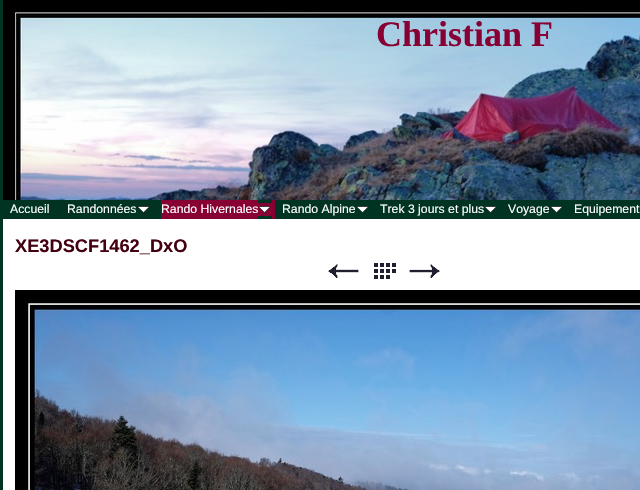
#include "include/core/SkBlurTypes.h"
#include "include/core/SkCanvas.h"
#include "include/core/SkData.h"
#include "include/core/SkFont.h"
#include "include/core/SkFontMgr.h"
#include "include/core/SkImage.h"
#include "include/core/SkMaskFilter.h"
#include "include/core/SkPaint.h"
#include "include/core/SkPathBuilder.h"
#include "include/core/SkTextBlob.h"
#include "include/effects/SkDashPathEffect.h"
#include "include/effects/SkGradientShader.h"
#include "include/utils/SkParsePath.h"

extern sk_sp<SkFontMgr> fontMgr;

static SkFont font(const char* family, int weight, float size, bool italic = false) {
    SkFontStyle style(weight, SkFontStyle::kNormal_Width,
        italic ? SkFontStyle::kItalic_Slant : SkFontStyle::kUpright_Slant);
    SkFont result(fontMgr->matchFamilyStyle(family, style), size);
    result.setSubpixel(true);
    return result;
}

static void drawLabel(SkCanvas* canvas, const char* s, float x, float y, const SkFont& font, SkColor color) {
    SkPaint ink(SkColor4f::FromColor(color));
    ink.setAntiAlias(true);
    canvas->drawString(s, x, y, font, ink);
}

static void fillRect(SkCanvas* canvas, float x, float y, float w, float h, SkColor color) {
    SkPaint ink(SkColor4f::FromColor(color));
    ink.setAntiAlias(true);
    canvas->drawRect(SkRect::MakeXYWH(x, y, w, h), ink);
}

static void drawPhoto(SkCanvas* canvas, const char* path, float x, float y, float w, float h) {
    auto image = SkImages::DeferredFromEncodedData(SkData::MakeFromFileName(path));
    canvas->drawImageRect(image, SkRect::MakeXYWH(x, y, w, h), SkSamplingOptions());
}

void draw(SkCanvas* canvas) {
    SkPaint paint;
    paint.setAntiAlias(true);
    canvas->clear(0xFFFFFFFF);
    fillRect(canvas, 0, 0, 3, 490, 0xFF003322);
    drawPhoto(canvas, "assets/img1.png", 3, 0, 637, 200);
    SkFont font1 = font("Liberation Serif", 700, 36);
    drawLabel(canvas, "Christian F", 376, 46, font1, 0xFF880033);
    fillRect(canvas, 3, 200, 637, 19, 0xFF003322);
    SkFont font2 = font("Liberation Sans", 400, 12.25f);
    drawLabel(canvas, "Accueil", 10, 213, font2, 0xFFFFFFFF);
    drawLabel(canvas, "Randonnées", 67, 213, font2, 0xFFFFFFFF);
    drawPhoto(canvas, "assets/img2.png", 138, 206, 11, 7);
    fillRect(canvas, 161, 200, 97, 19, 0xFF880033);
    fillRect(canvas, 258, 203, 14, 13, 0xFF880033);
    fillRect(canvas, 272, 200, 3, 19, 0xFF880033);
    drawLabel(canvas, "Rando Hivernales", 161, 213, font2, 0xFFFFFFFF);
    drawPhoto(canvas, "assets/img3.png", 259, 206, 11, 7);
    drawLabel(canvas, "Rando Alpine", 282, 213, font2, 0xFFFFFFFF);
    drawPhoto(canvas, "assets/img2.png", 357, 206, 11, 7);
    drawLabel(canvas, "Trek 3 jours et plus", 380, 213, font2, 0xFFFFFFFF);
    drawPhoto(canvas, "assets/img2.png", 485, 206, 11, 7);
    drawLabel(canvas, "Voyage", 508, 213, font2, 0xFFFFFFFF);
    drawPhoto(canvas, "assets/img2.png", 551, 206, 11, 7);
    drawLabel(canvas, "Equipement", 574, 213, font2, 0xFFFFFFFF);
    SkFont font3 = font("Liberation Sans", 700, 18.25f);
    drawLabel(canvas, "XE3DSCF1462_DxO", 15, 252, font3, 0xFF440011);
    drawPhoto(canvas, "assets/img4.png", 328, 264, 31, 14);
    drawPhoto(canvas, "assets/img5.png", 374, 263, 22, 16);
    drawPhoto(canvas, "assets/img6.png", 409, 264, 31, 14);
    drawPhoto(canvas, "assets/img7.png", 15, 290, 625, 200);
}
